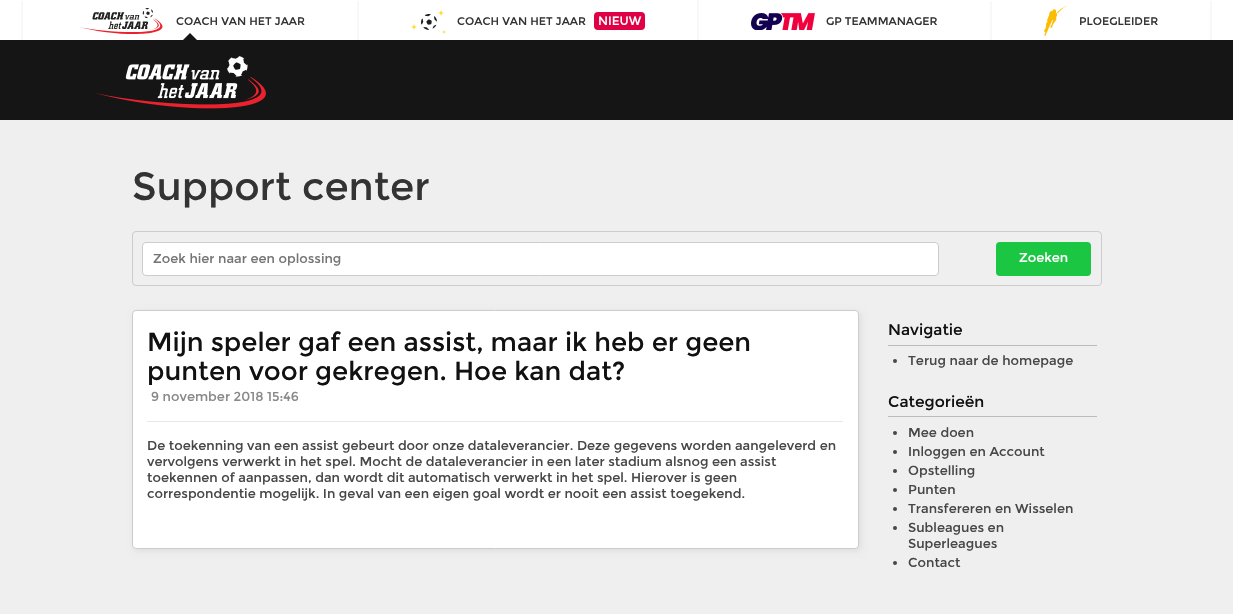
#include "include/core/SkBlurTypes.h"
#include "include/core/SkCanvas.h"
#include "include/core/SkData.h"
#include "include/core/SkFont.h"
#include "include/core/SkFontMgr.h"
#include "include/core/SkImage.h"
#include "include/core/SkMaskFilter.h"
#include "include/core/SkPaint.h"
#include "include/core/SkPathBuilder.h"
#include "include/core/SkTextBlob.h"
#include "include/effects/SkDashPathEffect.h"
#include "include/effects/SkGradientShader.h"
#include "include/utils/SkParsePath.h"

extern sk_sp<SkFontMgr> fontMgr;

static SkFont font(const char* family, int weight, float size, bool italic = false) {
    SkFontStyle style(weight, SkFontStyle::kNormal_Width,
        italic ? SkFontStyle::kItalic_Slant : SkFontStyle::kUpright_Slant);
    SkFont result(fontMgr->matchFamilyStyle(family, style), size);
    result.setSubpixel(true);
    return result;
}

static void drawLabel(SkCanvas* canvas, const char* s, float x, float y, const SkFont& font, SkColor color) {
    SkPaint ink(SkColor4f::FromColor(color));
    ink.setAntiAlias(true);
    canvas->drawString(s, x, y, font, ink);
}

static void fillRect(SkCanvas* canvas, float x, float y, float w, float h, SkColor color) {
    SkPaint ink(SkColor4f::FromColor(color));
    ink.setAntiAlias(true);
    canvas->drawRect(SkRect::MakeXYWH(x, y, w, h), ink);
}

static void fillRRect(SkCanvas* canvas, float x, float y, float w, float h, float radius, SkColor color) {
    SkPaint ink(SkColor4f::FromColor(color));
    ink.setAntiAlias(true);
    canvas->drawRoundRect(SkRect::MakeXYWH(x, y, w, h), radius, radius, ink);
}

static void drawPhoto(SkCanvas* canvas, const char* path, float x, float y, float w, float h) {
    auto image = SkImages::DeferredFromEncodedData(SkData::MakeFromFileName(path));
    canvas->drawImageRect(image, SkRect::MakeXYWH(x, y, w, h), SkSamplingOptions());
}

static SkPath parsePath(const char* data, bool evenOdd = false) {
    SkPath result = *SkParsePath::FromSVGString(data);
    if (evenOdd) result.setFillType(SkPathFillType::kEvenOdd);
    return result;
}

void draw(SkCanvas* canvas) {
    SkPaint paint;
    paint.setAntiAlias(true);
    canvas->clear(0xFFEFEFEF);
    fillRect(canvas, 0, 0, 1233, 40, 0xFFFFFFFF);
    fillRect(canvas, 357, 1, 2, 40, 0xFFF8F8F8);
    fillRect(canvas, 21, 1, 2, 40, 0xFFF8F8F8);
    drawPhoto(canvas, "assets/img1.png", 78, 8, 85, 26);
    SkFont font1 = font("Montserrat", 400, 11);
    drawLabel(canvas, "COACH VAN HET JAAR", 176, 25, font1, 0xFF333333);
    paint.setColor(0xFF151515);
    canvas->drawPath(parsePath("M182 41L190 33L198 41Z"), paint);
    fillRect(canvas, 697, 0, 2, 40, 0xFFF8F8F8);
    drawPhoto(canvas, "assets/img2.png", 411, 10, 35, 24);
    drawLabel(canvas, "COACH VAN HET JAAR", 457, 25, font1, 0xFF333333);
    fillRRect(canvas, 594, 12, 51, 18, 4, 0xFFDF0045);
    SkFont font2 = font("Montserrat", 400, 12);
    drawLabel(canvas, "NIEUW", 598, 25, font2, 0xFFFFFFFF);
    fillRect(canvas, 990, 1, 2, 40, 0xFFF8F8F8);
    drawPhoto(canvas, "assets/img3.png", 751, 13, 64, 17);
    drawLabel(canvas, "GP TEAMMANAGER", 826, 25, font1, 0xFF333333);
    fillRect(canvas, 1210, 1, 2, 40, 0xFFF8F8F8);
    drawPhoto(canvas, "assets/img4.png", 1044, 6, 24, 30);
    drawLabel(canvas, "PLOEGLEIDER", 1079, 25, font1, 0xFF333333);
    fillRect(canvas, 0, 40, 1233, 80, 0xFF151515);
    drawPhoto(canvas, "assets/img5.png", 95, 56, 171, 53);
    SkFont font3 = font("Montserrat", 400, 39);
    drawLabel(canvas, "Support center", 132, 200, font3, 0xFF333333);
    paint.setStroke(true);
    paint.setStrokeWidth(1);
    paint.setColor(0xFFCCCCCC);
    canvas->drawRoundRect(SkRect::MakeXYWH(132.5f, 231.5f, 969, 54), 3.5f, 3.5f, paint);
    paint.setStroke(false);
    paint.setColor(0xFFFFFFFF);
    canvas->drawRoundRect(SkRect::MakeXYWH(142.5f, 242.5f, 796, 33), 3.5f, 3.5f, paint);
    paint.setStroke(true);
    paint.setColor(0xFFCCCCCC);
    canvas->drawRoundRect(SkRect::MakeXYWH(142.5f, 242.5f, 796, 33), 3.5f, 3.5f, paint);
    SkFont font4 = font("Montserrat", 400, 13);
    drawLabel(canvas, "Zoek hier naar een oplossing", 153, 263, font4, 0xFF757575);
    fillRRect(canvas, 996, 242, 95, 34, 4, 0xFF1AC642);
    drawLabel(canvas, "Zoeken", 1019, 262, font4, 0xFFFFFFFF);
    paint.setStroke(false);
    paint.setColor(0xFFDDDDDD);
    paint.setMaskFilter(SkMaskFilter::MakeBlur(kNormal_SkBlurStyle, 3));
    canvas->drawRoundRect(SkRect::MakeXYWH(134, 312, 727, 239), 4, 4, paint);
    paint.setMaskFilter(nullptr);
    paint.setColor(0xFFFFFFFF);
    canvas->drawRoundRect(SkRect::MakeXYWH(132.5f, 310.5f, 726, 238), 3.5f, 3.5f, paint);
    paint.setStroke(true);
    paint.setColor(0xFFCCCCCC);
    canvas->drawRoundRect(SkRect::MakeXYWH(132.5f, 310.5f, 726, 238), 3.5f, 3.5f, paint);
    SkFont font5 = font("Montserrat", 400, 26);
    drawLabel(canvas, "Mijn speler gaf een assist, maar ik heb er geen", 147, 351, font5, 0xFF111111);
    drawLabel(canvas, "punten voor gekregen. Hoe kan dat?", 147, 380, font5, 0xFF111111);
    drawLabel(canvas, "9 november 2018 15:46", 151, 401, font4, 0xFF888888);
    fillRect(canvas, 147, 421, 696, 1, 0xFFE7E7E7);
    drawLabel(canvas, "De toekenning van een assist gebeurt door onze dataleverancier. Deze gegevens worden aangeleverd en", 147, 450, font4, 0xFF474747);
    drawLabel(canvas, "vervolgens verwerkt in het spel. Mocht de dataleverancier in een later stadium alsnog een assist", 147, 466, font4, 0xFF474747);
    drawLabel(canvas, "toekennen of aanpassen, dan wordt dit automatisch verwerkt in het spel. Hierover is geen", 147, 482, font4, 0xFF474747);
    drawLabel(canvas, "correspondentie mogelijk. In geval van een eigen goal wordt er nooit een assist toegekend.", 147, 498, font4, 0xFF474747);
    SkFont font6 = font("Montserrat", 400, 15.5f);
    drawLabel(canvas, "Navigatie", 888, 335, font6, 0xFF111111);
    fillRect(canvas, 888, 345, 209, 1, 0xFFBBBBBB);
    paint.setStroke(false);
    paint.setColor(0xFF474747);
    canvas->drawCircle(895, 361, 2, paint);
    drawLabel(canvas, "Terug naar de homepage", 908, 365, font4, 0xFF474747);
    drawLabel(canvas, "Categorieën", 888, 407, font6, 0xFF111111);
    fillRect(canvas, 888, 416, 209, 1, 0xFFBBBBBB);
    canvas->drawCircle(895, 433, 2, paint);
    drawLabel(canvas, "Mee doen", 908, 437, font4, 0xFF474747);
    canvas->drawCircle(895, 452, 2, paint);
    drawLabel(canvas, "Inloggen en Account", 908, 456, font4, 0xFF474747);
    canvas->drawCircle(895, 471, 2, paint);
    drawLabel(canvas, "Opstelling", 908, 475, font4, 0xFF474747);
    canvas->drawCircle(895, 490, 2, paint);
    drawLabel(canvas, "Punten", 908, 494, font4, 0xFF474747);
    canvas->drawCircle(895, 509, 2, paint);
    drawLabel(canvas, "Transfereren en Wisselen", 908, 513, font4, 0xFF474747);
    canvas->drawCircle(895, 528, 2, paint);
    drawLabel(canvas, "Subleagues en", 908, 532, font4, 0xFF474747);
    drawLabel(canvas, "Superleagues", 908, 548, font4, 0xFF474747);
    canvas->drawCircle(895, 563, 2, paint);
    drawLabel(canvas, "Contact", 908, 567, font4, 0xFF474747);
}
